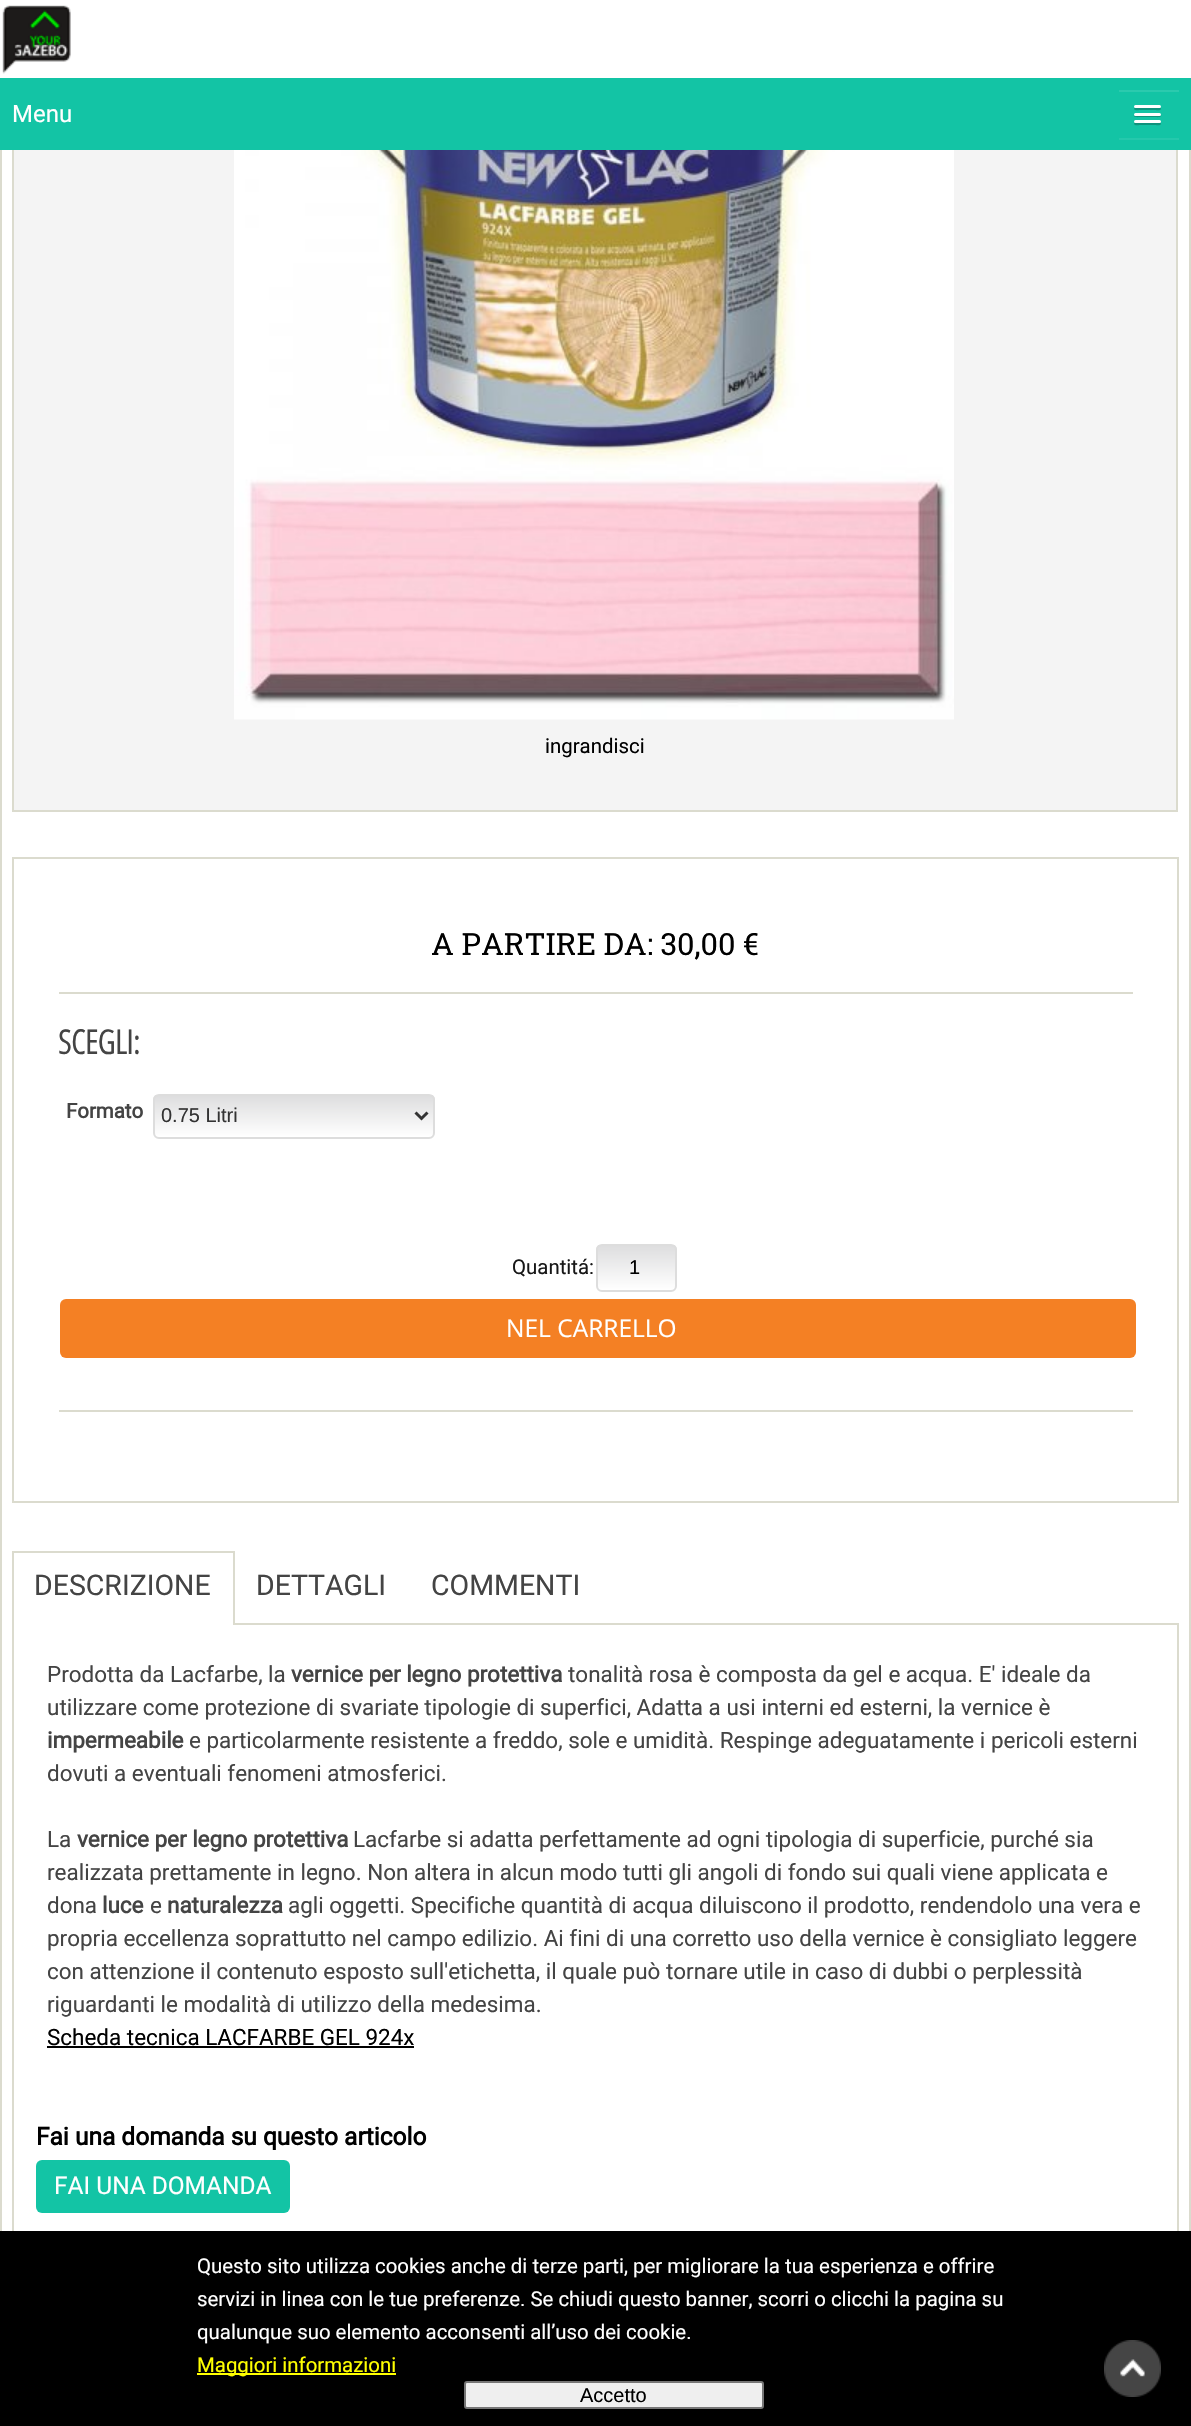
#include "include/core/SkBlurTypes.h"
#include "include/core/SkCanvas.h"
#include "include/core/SkData.h"
#include "include/core/SkFont.h"
#include "include/core/SkFontMgr.h"
#include "include/core/SkImage.h"
#include "include/core/SkMaskFilter.h"
#include "include/core/SkPaint.h"
#include "include/core/SkPathBuilder.h"
#include "include/core/SkTextBlob.h"
#include "include/effects/SkDashPathEffect.h"
#include "include/effects/SkGradientShader.h"
#include "include/utils/SkParsePath.h"

extern sk_sp<SkFontMgr> fontMgr;

static SkFont font(const char* family, int weight, float size, bool italic = false) {
    SkFontStyle style(weight, SkFontStyle::kNormal_Width,
        italic ? SkFontStyle::kItalic_Slant : SkFontStyle::kUpright_Slant);
    SkFont result(fontMgr->matchFamilyStyle(family, style), size);
    result.setSubpixel(true);
    return result;
}

static void drawLabel(SkCanvas* canvas, const char* s, float x, float y, const SkFont& font, SkColor color) {
    SkPaint ink(SkColor4f::FromColor(color));
    ink.setAntiAlias(true);
    canvas->drawString(s, x, y, font, ink);
}

static void fillRect(SkCanvas* canvas, float x, float y, float w, float h, SkColor color) {
    SkPaint ink(SkColor4f::FromColor(color));
    ink.setAntiAlias(true);
    canvas->drawRect(SkRect::MakeXYWH(x, y, w, h), ink);
}

static void fillRRect(SkCanvas* canvas, float x, float y, float w, float h, float radius, SkColor color) {
    SkPaint ink(SkColor4f::FromColor(color));
    ink.setAntiAlias(true);
    canvas->drawRoundRect(SkRect::MakeXYWH(x, y, w, h), radius, radius, ink);
}

static void drawPhoto(SkCanvas* canvas, const char* path, float x, float y, float w, float h) {
    auto image = SkImages::DeferredFromEncodedData(SkData::MakeFromFileName(path));
    canvas->drawImageRect(image, SkRect::MakeXYWH(x, y, w, h), SkSamplingOptions());
}

static SkPath parsePath(const char* data, bool evenOdd = false) {
    SkPath result = *SkParsePath::FromSVGString(data);
    if (evenOdd) result.setFillType(SkPathFillType::kEvenOdd);
    return result;
}

void draw(SkCanvas* canvas) {
    SkPaint paint;
    paint.setAntiAlias(true);
    canvas->clear(0xFFFFFFFF);
    paint.setStroke(true);
    paint.setStrokeWidth(2);
    paint.setColor(0xFFDBDBCE);
    canvas->drawRect(SkRect::MakeXYWH(1, -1, 1189, 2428), paint);
    fillRect(canvas, 14, 150, 1162, 660, 0xFFF4F4F4);
    canvas->drawRect(SkRect::MakeXYWH(13, -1, 1164, 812), paint);
    fillRect(canvas, 0, 0, 1191, 78, 0xFFFFFFFF);
    drawPhoto(canvas, "assets/img1.png", 2, 5, 69, 69);
    fillRect(canvas, 0, 78, 1191, 72, 0xFF13C4A5);
    SkFont font1 = font("Roboto", 400, 24);
    drawLabel(canvas, "Menu", 12, 122, font1, 0xFFFFFFFF);
    fillRect(canvas, 1119, 138, 60, 2, 0xFF25C8AC);
    fillRect(canvas, 1119, 90, 60, 2, 0xFF2BCAAE);
    paint.setStroke(false);
    paint.setColor(0xFF0E937C);
    canvas->drawPath(parsePath("M1134.5 107.5L1134 109C1134.5 111 1139 110 1139.5 110H1155.5C1156 110 1160.5 111 1161 109L1160.5 107.5L1159.5 108H1135.5Z"), paint);
    fillRRect(canvas, 1134, 105, 27, 3, 1.5f, 0xFFFFFFFF);
    canvas->drawPath(parsePath("M1134 114.5C1132.5 118 1139.5 117 1139.5 117H1155.5C1155.5 117 1162.5 118 1161 114.5C1160.5 115 1160 115.5 1159.5 115.5H1135.5C1135 115.5 1134.5 115 1134 114.5Z"), paint);
    fillRRect(canvas, 1134, 113, 27, 3, 1.5f, 0xFFFFFFFF);
    canvas->drawPath(parsePath("M1134.5 122.5L1134 124C1134.5 126 1139 125 1139.5 125H1155.5C1156 125 1160.5 126 1161 124L1160.5 122.5L1159.5 123H1135.5Z"), paint);
    fillRRect(canvas, 1134, 120, 27, 3, 1.5f, 0xFFFFFFFF);
    drawPhoto(canvas, "assets/img2.png", 234, 150, 720, 570);
    SkFont font2 = font("Roboto", 400, 20.4f);
    drawLabel(canvas, "ingrandisci", 545, 753, font2, 0xFF000000);
    paint.setStroke(true);
    paint.setColor(0xFFDBDBCE);
    canvas->drawRect(SkRect::MakeXYWH(13, 858, 1165, 644), paint);
    fillRect(canvas, 59, 992, 1074, 2, 0xFFDBDBCE);
    SkFont font3 = font("Roboto Slab", 400, 30.6f);
    drawLabel(canvas, "A PARTIRE DA: 30,00 €", 431, 955, font3, 0xFF000000);
    SkFont font4 = font("Open Sans Condensed", 700, 33);
    drawLabel(canvas, "SCEGLI:", 58, 1054, font4, 0xFF444444);
    SkFont font5 = font("Roboto", 700, 20.4f);
    drawLabel(canvas, "Formato", 66, 1118, font5, 0xFF444444);
    canvas->save();
    canvas->clipPath(parsePath("M159 1094H429C432.5 1094 435 1096.5 435 1100V1133C435 1136.5 432.5 1139 429 1139H159C155.5 1139 153 1136.5 153 1133V1100C153 1096.5 155.5 1094 159 1094Z"), true);
    paint.setStroke(false);
    {
        const SkColor colors[] = {0xFFDDDDDE, 0xFFFFFFFF};
        const float stops[] = {0, 1};
        const SkPoint ends[] = {{294, 1095}, {294, 1137}};
        paint.setShader(SkGradientShader::MakeLinear(ends, colors, stops, 2, SkTileMode::kClamp));
        paint.setAlpha(255);
    }
    canvas->drawRect(SkRect::MakeXYWH(153, 1095, 282, 42), paint);
    canvas->restore();
    paint.setStroke(true);
    paint.setShader(nullptr);
    paint.setColor(0xFFDDDDDD);
    canvas->drawRoundRect(SkRect::MakeXYWH(154, 1095, 280, 43), 5, 5, paint);
    paint.setStrokeWidth(3);
    paint.setColor(0xFF333333);
    canvas->drawPath(parsePath("M415.5 1112.5L421.5 1118.5L427.5 1112.5"), paint);
    SkFont font6 = font("Liberation Sans", 400, 20);
    drawLabel(canvas, "0.75 Litri", 161, 1122, font6, 0xFF333333);
    fillRect(canvas, 59, 1410, 1074, 2, 0xFFDBDBCE);
    drawLabel(canvas, "Quantitá:", 512, 1274, font2, 0xFF171717);
    canvas->save();
    canvas->clipPath(parsePath("M602 1244H671C674.5 1244 677 1246.5 677 1250V1286C677 1289.5 674.5 1292 671 1292H602C598.5 1292 596 1289.5 596 1286V1250C596 1246.5 598.5 1244 602 1244Z"), true);
    paint.setStroke(false);
    {
        const SkColor colors[] = {0xFFDDDDDE, 0xFFFFFFFF};
        const float stops[] = {0, 1};
        const SkPoint ends[] = {{636, 1245}, {636, 1290}};
        paint.setShader(SkGradientShader::MakeLinear(ends, colors, stops, 2, SkTileMode::kClamp));
        paint.setAlpha(255);
    }
    canvas->drawRect(SkRect::MakeXYWH(596, 1245, 81, 45), paint);
    canvas->restore();
    paint.setStroke(true);
    paint.setStrokeWidth(2);
    paint.setShader(nullptr);
    paint.setColor(0xFFDDDDDD);
    canvas->drawRoundRect(SkRect::MakeXYWH(597, 1245, 79, 46), 5, 5, paint);
    drawLabel(canvas, "1", 629, 1274, font6, 0xFF000000);
    fillRRect(canvas, 60, 1299, 1076, 59, 6, 0xFFF48024);
    SkFont font7 = font("Open Sans", 400, 24.5f);
    drawLabel(canvas, "NEL CARRELLO", 506, 1337, font7, 0xFFFFFFFF);
    paint.setColor(0xFFDBDBCE);
    canvas->drawRect(SkRect::MakeXYWH(13, 1624, 1165, 676), paint);
    fillRect(canvas, 14, 1623, 219, 2, 0xFFFFFFFF);
    fillRect(canvas, 12, 1551, 222, 2, 0xFFDBDBCE);
    fillRect(canvas, 233, 1551, 2, 74, 0xFFDBDBCE);
    fillRect(canvas, 12, 1551, 2, 74, 0xFFDBDBCE);
    SkFont font8 = font("Roboto", 400, 28.5f);
    drawLabel(canvas, "DESCRIZIONE", 34, 1595, font8, 0xFF444444);
    drawLabel(canvas, "DETTAGLI", 256, 1595, font8, 0xFF444444);
    drawLabel(canvas, "COMMENTI", 431, 1595, font8, 0xFF444444);
    SkFont font9 = font("Roboto", 400, 22.45f);
    drawLabel(canvas, "Prodotta da Lacfarbe, la", 47, 1682, font9, 0xFF444444);
    SkFont font10 = font("Roboto", 700, 22.45f);
    drawLabel(canvas, "vernice per legno protettiva", 291, 1682, font10, 0xFF444444);
    drawLabel(canvas, "tonalità rosa è composta da gel e acqua. E' ideale da", 568, 1682, font9, 0xFF444444);
    drawLabel(canvas, "utilizzare come protezione di svariate tipologie di superfici, Adatta a usi interni ed esterni, la vernice è", 47, 1715, font9, 0xFF444444);
    drawLabel(canvas, "impermeabile", 47, 1748, font10, 0xFF444444);
    drawLabel(canvas, "e particolarmente resistente a freddo, sole e umidità. Respinge adeguatamente i pericoli esterni", 189, 1748, font9, 0xFF444444);
    drawLabel(canvas, "dovuti a eventuali fenomeni atmosferici.", 47, 1781, font9, 0xFF444444);
    drawLabel(canvas, "La", 47, 1847, font9, 0xFF444444);
    drawLabel(canvas, "vernice per legno protettiva", 77, 1847, font10, 0xFF444444);
    drawLabel(canvas, "Lacfarbe si adatta perfettamente ad ogni tipologia di superficie, purché sia", 353, 1847, font9, 0xFF444444);
    drawLabel(canvas, "realizzata prettamente in legno. Non altera in alcun modo tutti gli angoli di fondo sui quali viene applicata e", 47, 1880, font9, 0xFF444444);
    drawLabel(canvas, "dona", 47, 1913, font9, 0xFF444444);
    drawLabel(canvas, "luce", 102, 1913, font10, 0xFF444444);
    drawLabel(canvas, "e", 150, 1913, font9, 0xFF444444);
    drawLabel(canvas, "naturalezza", 167, 1913, font10, 0xFF444444);
    drawLabel(canvas, "agli oggetti. Specifiche quantità di acqua diluiscono il prodotto, rendendolo una vera e", 288, 1913, font9, 0xFF444444);
    drawLabel(canvas, "propria eccellenza soprattutto nel campo edilizio. Ai fini di una corretto uso della vernice è consigliato leggere", 47, 1946, font9, 0xFF444444);
    drawLabel(canvas, "con attenzione il contenuto esposto sull'etichetta, il quale può tornare utile in caso di dubbi o perplessità", 47, 1979, font9, 0xFF444444);
    drawLabel(canvas, "riguardanti le modalità di utilizzo della medesima.", 47, 2012, font9, 0xFF444444);
    drawLabel(canvas, "Scheda tecnica LACFARBE GEL 924x", 47, 2045, font9, 0xFF000000);
    fillRect(canvas, 47, 2046, 367, 2, 0xFF000000);
    SkFont font11 = font("Roboto", 700, 24.5f);
    drawLabel(canvas, "Fai una domanda su questo articolo", 36, 2145, font11, 0xFF000000);
    fillRRect(canvas, 36, 2160, 254, 53, 6, 0xFF13C4A5);
    SkFont font12 = font("Roboto", 400, 24.5f);
    drawLabel(canvas, "FAI UNA DOMANDA", 54, 2194, font12, 0xFFFFFFFF);
    fillRect(canvas, 0, 2231, 1191, 195, 0xFF000000);
    drawLabel(canvas, "Questo sito utilizza cookies anche di terze parti, per migliorare la tua esperienza e offrire", 197, 2273, font2, 0xFFFFFFFF);
    drawLabel(canvas, "servizi in linea con le tue preferenze. Se chiudi questo banner, scorri o clicchi la pagina su", 197, 2306, font2, 0xFFFFFFFF);
    drawLabel(canvas, "qualunque suo elemento acconsenti all’uso dei cookie.", 197, 2339, font2, 0xFFFFFFFF);
    fillRect(canvas, 197, 2373, 199, 2, 0xFFFFFF00);
    drawLabel(canvas, "Maggiori informazioni", 197, 2372, font2, 0xFFFFFF00);
    paint.setStroke(false);
    paint.setColor(0xFFEFEFEF);
    canvas->drawRoundRect(SkRect::MakeXYWH(465, 2382, 298, 26), 2, 2, paint);
    paint.setStroke(true);
    paint.setColor(0xFF767676);
    canvas->drawRoundRect(SkRect::MakeXYWH(465, 2382, 298, 26), 2, 2, paint);
    drawLabel(canvas, "Accetto", 580, 2402, font6, 0xFF000000);
    drawPhoto(canvas, "assets/img3.png", 1104, 2340, 57, 57);
}
